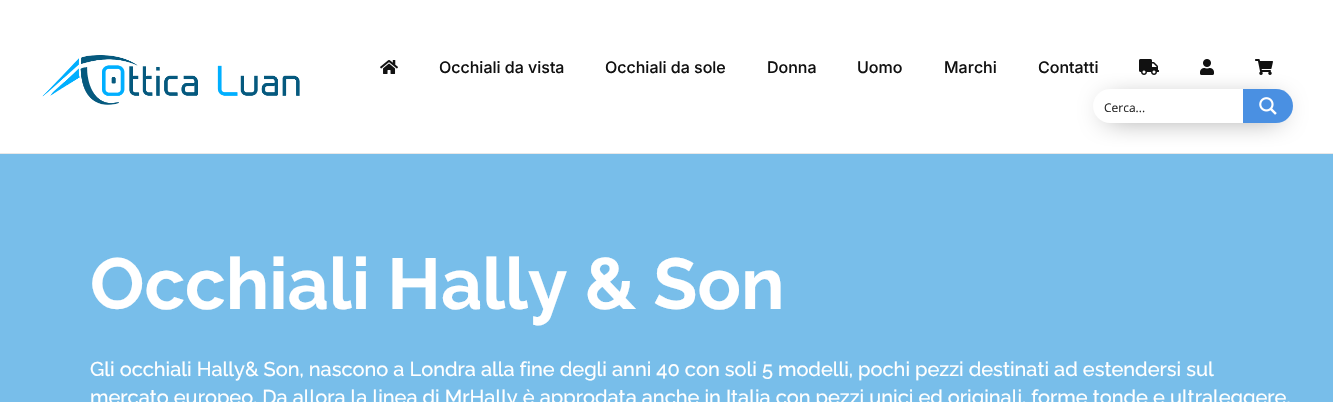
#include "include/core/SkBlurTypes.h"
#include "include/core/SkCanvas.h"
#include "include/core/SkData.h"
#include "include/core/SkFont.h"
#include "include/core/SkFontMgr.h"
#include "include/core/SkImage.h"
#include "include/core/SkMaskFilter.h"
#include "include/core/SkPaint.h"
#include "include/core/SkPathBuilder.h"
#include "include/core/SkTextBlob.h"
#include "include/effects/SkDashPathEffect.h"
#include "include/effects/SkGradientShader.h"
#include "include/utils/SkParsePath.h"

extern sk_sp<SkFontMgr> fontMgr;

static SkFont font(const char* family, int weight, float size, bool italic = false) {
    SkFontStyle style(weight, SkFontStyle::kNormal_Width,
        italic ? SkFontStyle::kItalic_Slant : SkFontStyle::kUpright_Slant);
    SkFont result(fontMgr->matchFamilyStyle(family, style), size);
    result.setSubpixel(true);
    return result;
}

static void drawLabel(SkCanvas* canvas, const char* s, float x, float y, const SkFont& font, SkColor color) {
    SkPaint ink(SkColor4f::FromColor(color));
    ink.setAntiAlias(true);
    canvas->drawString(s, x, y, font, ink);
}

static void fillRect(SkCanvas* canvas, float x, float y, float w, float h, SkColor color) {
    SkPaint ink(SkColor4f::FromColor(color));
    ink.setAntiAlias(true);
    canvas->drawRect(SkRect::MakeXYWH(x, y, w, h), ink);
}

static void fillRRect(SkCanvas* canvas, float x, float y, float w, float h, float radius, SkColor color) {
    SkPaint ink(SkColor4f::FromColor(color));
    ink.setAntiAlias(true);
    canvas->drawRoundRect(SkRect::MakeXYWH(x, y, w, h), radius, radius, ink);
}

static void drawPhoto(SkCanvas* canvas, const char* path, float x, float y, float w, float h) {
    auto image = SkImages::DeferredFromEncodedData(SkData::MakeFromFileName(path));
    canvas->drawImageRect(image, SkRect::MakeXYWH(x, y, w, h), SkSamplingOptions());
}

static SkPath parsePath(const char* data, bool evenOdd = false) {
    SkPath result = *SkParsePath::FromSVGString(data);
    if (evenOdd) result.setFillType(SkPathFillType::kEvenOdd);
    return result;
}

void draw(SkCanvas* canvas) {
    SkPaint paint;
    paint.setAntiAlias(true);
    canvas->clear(0xFFFFFFFF);
    fillRect(canvas, 0, 153, 1333, 1, 0xFFE8E8E8);
    drawPhoto(canvas, "assets/img1.png", 42, 55, 258, 50);
    drawPhoto(canvas, "assets/img2.png", 380, 60, 18, 14);
    SkFont font1 = font("Inter", 500, 16);
    drawLabel(canvas, "Occhiali da vista", 439, 73, font1, 0xFF111111);
    drawLabel(canvas, "Occhiali da sole", 605, 73, font1, 0xFF111111);
    drawLabel(canvas, "Donna", 767, 73, font1, 0xFF111111);
    drawLabel(canvas, "Uomo", 857, 73, font1, 0xFF111111);
    drawLabel(canvas, "Marchi", 944, 73, font1, 0xFF111111);
    drawLabel(canvas, "Contatti", 1038, 73, font1, 0xFF111111);
    drawPhoto(canvas, "assets/img3.png", 1139, 59, 20, 16);
    drawPhoto(canvas, "assets/img4.png", 1200, 59, 14, 16);
    drawPhoto(canvas, "assets/img5.png", 1255, 59, 18, 16);
    paint.setColor(0xFF000000);
    paint.setMaskFilter(SkMaskFilter::MakeBlur(kNormal_SkBlurStyle, 14));
    canvas->drawRoundRect(SkRect::MakeXYWH(1106, 106, 174, 8), 4, 4, paint);
    paint.setMaskFilter(nullptr);
    fillRRect(canvas, 1093, 89, 200, 34, 17, 0xFFFFFFFF);
    SkFont font2 = font("Open Sans", 400, 12);
    drawLabel(canvas, "Cerca...", 1104, 112, font2, 0xFF262626);
    paint.setColor(0xFF4A90E2);
    canvas->drawPath(parsePath("M1243 89H1276C1285.5 89 1293 96.5 1293 106C1293 115.5 1285.5 123 1276 123H1243Z"), paint);
    drawPhoto(canvas, "assets/img6.png", 1259, 97, 18, 18);
    fillRect(canvas, 0, 154, 1333, 248, 0xFF78BEEA);
    SkFont font3 = font("Raleway", 700, 72);
    drawLabel(canvas, "Occhiali Hally & Son", 90, 309, font3, 0xFFFFFFFF);
    SkFont font4 = font("Raleway", 500, 20);
    drawLabel(canvas, "Gli occhiali Hally& Son, nascono a Londra alla fine degli anni 40 con soli 5 modelli, pochi pezzi destinati ad estendersi sul", 90, 376, font4, 0xFFFFFFFF);
    drawLabel(canvas, "mercato europeo. Da allora la linea di MrHally è approdata anche in Italia con pezzi unici ed originali, forme tonde e ultraleggere.", 90, 404, font4, 0xFFFFFFFF);
}
